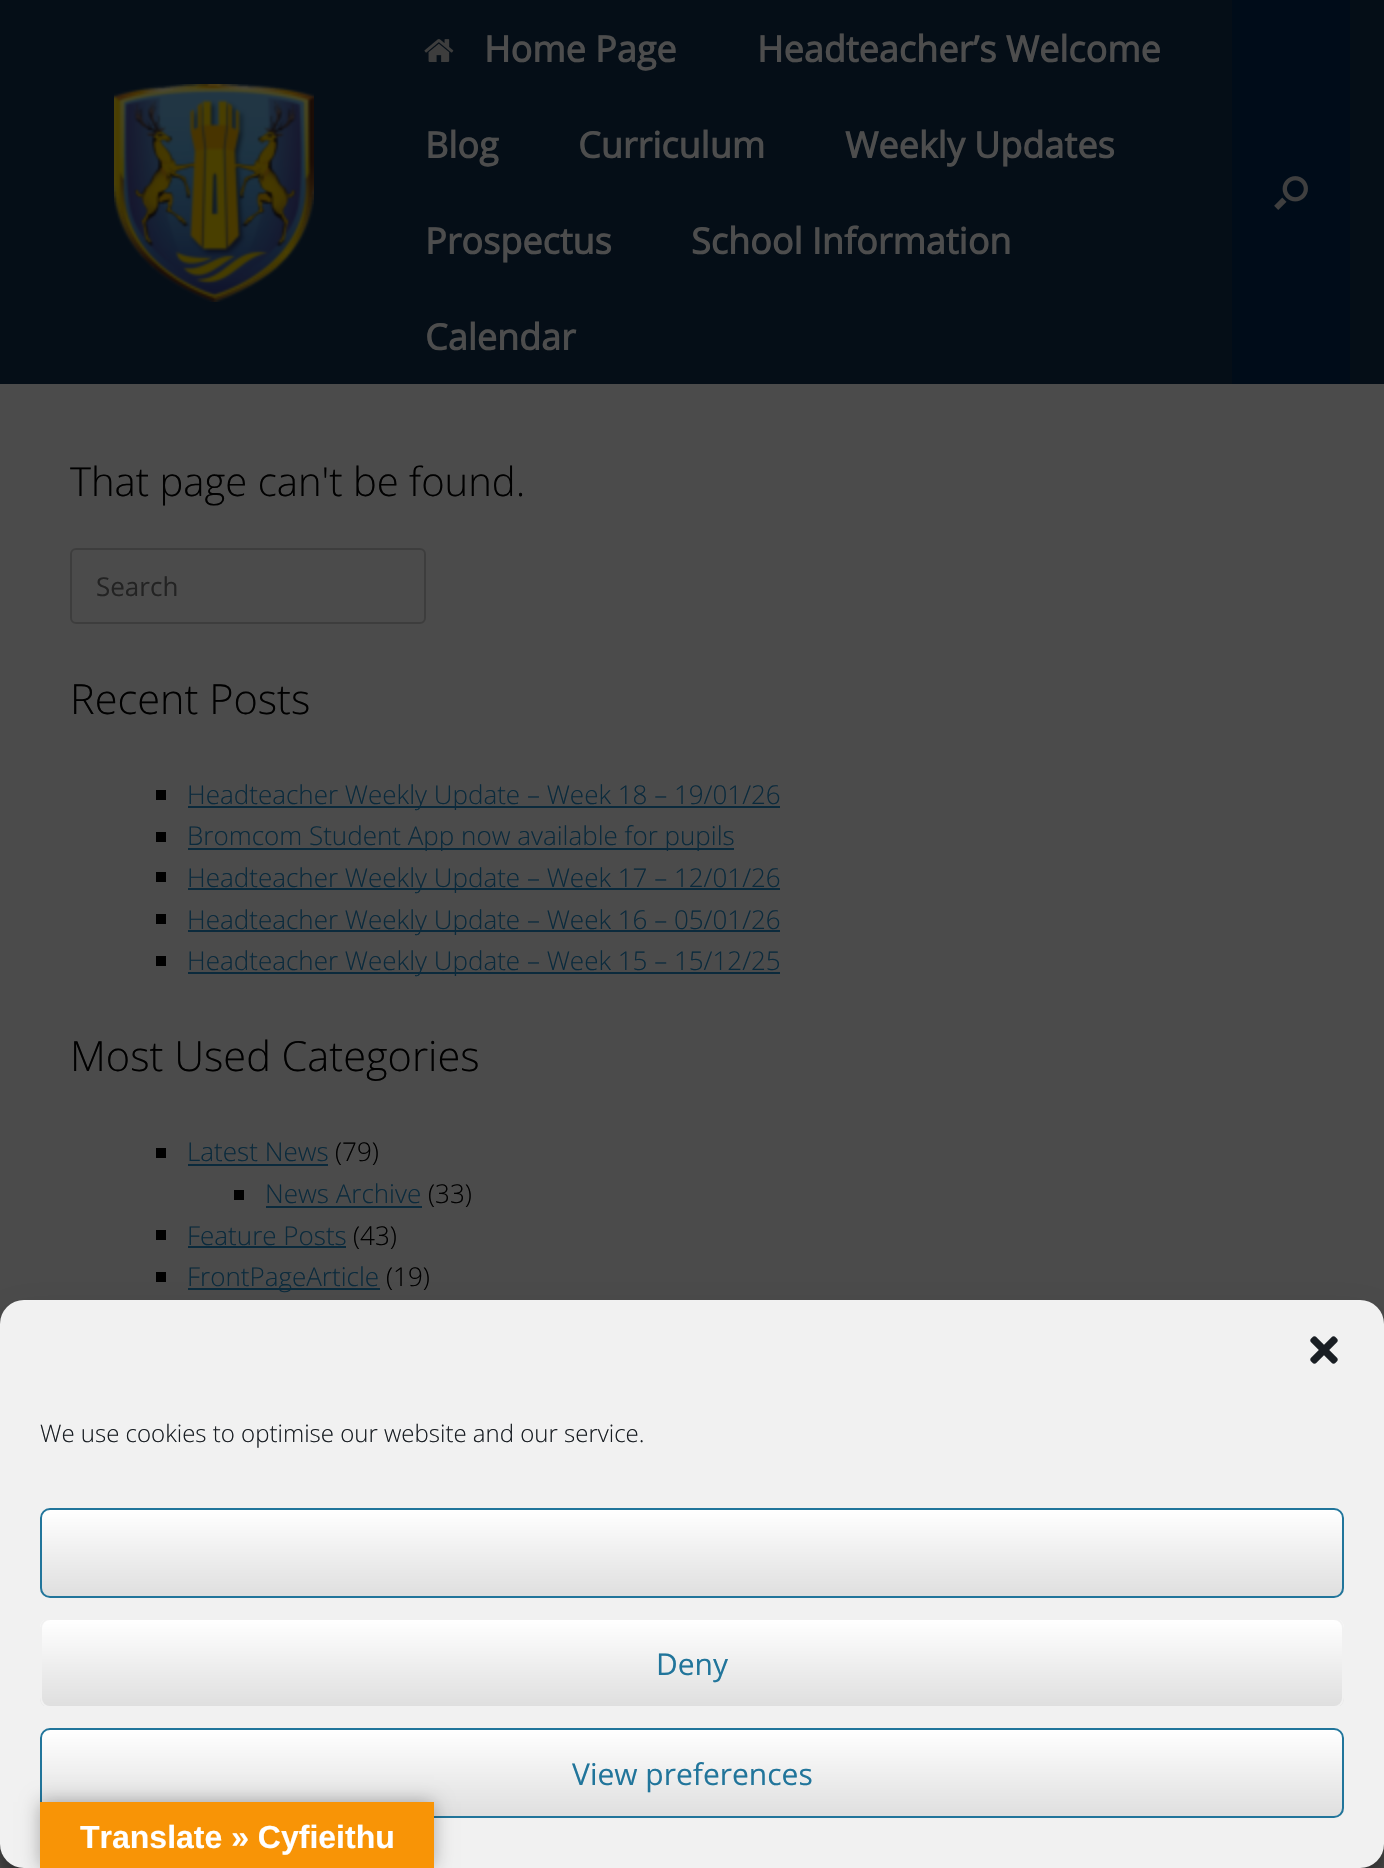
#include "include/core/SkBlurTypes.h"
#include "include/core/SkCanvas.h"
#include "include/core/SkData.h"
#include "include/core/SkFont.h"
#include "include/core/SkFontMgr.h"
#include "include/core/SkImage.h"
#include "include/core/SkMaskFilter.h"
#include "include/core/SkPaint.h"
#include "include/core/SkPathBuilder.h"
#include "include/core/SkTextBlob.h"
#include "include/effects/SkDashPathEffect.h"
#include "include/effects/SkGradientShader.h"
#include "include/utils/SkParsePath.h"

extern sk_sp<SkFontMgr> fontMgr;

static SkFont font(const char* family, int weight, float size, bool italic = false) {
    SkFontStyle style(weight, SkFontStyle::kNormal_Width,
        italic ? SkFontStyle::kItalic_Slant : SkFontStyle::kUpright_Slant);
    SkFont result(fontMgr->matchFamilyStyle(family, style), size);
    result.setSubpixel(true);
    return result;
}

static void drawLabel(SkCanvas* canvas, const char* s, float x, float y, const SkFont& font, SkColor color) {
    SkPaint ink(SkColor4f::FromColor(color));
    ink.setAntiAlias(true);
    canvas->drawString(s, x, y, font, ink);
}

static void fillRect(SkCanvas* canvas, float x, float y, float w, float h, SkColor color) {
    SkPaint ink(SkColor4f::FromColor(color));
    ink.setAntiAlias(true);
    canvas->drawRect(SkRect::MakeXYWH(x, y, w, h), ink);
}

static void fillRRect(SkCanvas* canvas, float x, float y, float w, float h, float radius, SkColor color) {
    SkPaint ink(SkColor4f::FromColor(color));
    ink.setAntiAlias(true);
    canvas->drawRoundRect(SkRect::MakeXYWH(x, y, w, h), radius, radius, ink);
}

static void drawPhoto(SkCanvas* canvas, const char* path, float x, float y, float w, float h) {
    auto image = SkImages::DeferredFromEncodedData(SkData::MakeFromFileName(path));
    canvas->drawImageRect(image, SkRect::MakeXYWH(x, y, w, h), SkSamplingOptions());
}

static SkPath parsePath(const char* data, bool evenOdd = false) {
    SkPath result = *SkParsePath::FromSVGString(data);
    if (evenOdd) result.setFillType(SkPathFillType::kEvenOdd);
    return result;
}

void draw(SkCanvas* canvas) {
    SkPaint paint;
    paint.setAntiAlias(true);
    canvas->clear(0xFF4B4B4B);
    fillRect(canvas, 0, 0, 1384, 384, 0xFF050E17);
    drawPhoto(canvas, "assets/img1.png", 114, 84, 200, 218);
    drawPhoto(canvas, "assets/img2.png", 424, 39, 30, 23);
    SkFont font1 = font("Open Sans", 700, 36);
    drawLabel(canvas, "Home Page", 484, 62, font1, 0xFF4D4D4D);
    drawLabel(canvas, "Headteacher’s Welcome", 757, 62, font1, 0xFF4D4D4D);
    drawLabel(canvas, "Blog", 425, 158, font1, 0xFF4D4D4D);
    drawLabel(canvas, "Curriculum", 578, 158, font1, 0xFF4D4D4D);
    drawLabel(canvas, "Weekly Updates", 845, 158, font1, 0xFF4D4D4D);
    drawLabel(canvas, "Prospectus", 425, 254, font1, 0xFF4D4D4D);
    drawLabel(canvas, "School Information", 691, 254, font1, 0xFF4D4D4D);
    drawLabel(canvas, "Calendar", 425, 350, font1, 0xFF4D4D4D);
    fillRect(canvas, 1232, 0, 118, 384, 0xFF000C19);
    drawPhoto(canvas, "assets/img3.png", 1274, 176, 34, 34);
    SkFont font2 = font("Open Sans", 300, 40);
    drawLabel(canvas, "That page can't be found.", 70, 496, font2, 0xFF000000);
    paint.setStroke(true);
    paint.setStrokeWidth(2);
    paint.setColor(0xFF3D3D3D);
    canvas->drawRoundRect(SkRect::MakeXYWH(71, 549, 354, 74), 5, 5, paint);
    SkFont font3 = font("Open Sans", 400, 26);
    drawLabel(canvas, "Search", 96, 596, font3, 0xFF232323);
    SkFont font4 = font("Open Sans", 300, 41.5f);
    drawLabel(canvas, "Recent Posts", 70, 714, font4, 0xFF000000);
    fillRect(canvas, 156, 790, 10, 10, 0xFF000000);
    fillRect(canvas, 188, 806, 592, 2, 0xFF0B2A3C);
    SkFont font5 = font("Open Sans", 300, 26);
    drawLabel(canvas, "Headteacher Weekly Update – Week 18 – 19/01/26", 187, 804, font5, 0xFF0B2A3C);
    fillRect(canvas, 156, 832, 10, 10, 0xFF000000);
    fillRect(canvas, 188, 848, 546, 2, 0xFF0B2A3C);
    drawLabel(canvas, "Bromcom Student App now available for pupils", 187, 845, font5, 0xFF0B2A3C);
    fillRect(canvas, 156, 872, 10, 10, 0xFF000000);
    fillRect(canvas, 188, 888, 592, 2, 0xFF0B2A3C);
    drawLabel(canvas, "Headteacher Weekly Update – Week 17 – 12/01/26", 187, 887, font5, 0xFF0B2A3C);
    fillRect(canvas, 156, 914, 10, 10, 0xFF000000);
    fillRect(canvas, 188, 930, 592, 2, 0xFF0B2A3C);
    drawLabel(canvas, "Headteacher Weekly Update – Week 16 – 05/01/26", 187, 929, font5, 0xFF0B2A3C);
    fillRect(canvas, 156, 956, 10, 10, 0xFF000000);
    fillRect(canvas, 188, 972, 592, 2, 0xFF0B2A3C);
    drawLabel(canvas, "Headteacher Weekly Update – Week 15 – 15/12/25", 187, 970, font5, 0xFF0B2A3C);
    drawLabel(canvas, "Most Used Categories", 70, 1071, font4, 0xFF000000);
    fillRect(canvas, 156, 1148, 10, 10, 0xFF000000);
    drawLabel(canvas, "Latest News", 187, 1161, font5, 0xFF0B2A3C);
    fillRect(canvas, 188, 1164, 140, 2, 0xFF0B2A3C);
    drawLabel(canvas, "(79)", 335, 1161, font5, 0xFF000000);
    fillRect(canvas, 234, 1190, 10, 10, 0xFF000000);
    drawLabel(canvas, "News Archive", 265, 1203, font5, 0xFF0B2A3C);
    fillRect(canvas, 266, 1206, 156, 2, 0xFF0B2A3C);
    drawLabel(canvas, "(33)", 428, 1203, font5, 0xFF000000);
    fillRect(canvas, 156, 1230, 10, 10, 0xFF000000);
    drawLabel(canvas, "Feature Posts", 187, 1245, font5, 0xFF0B2A3C);
    fillRect(canvas, 188, 1246, 158, 2, 0xFF0B2A3C);
    drawLabel(canvas, "(43)", 353, 1245, font5, 0xFF000000);
    fillRect(canvas, 156, 1272, 10, 10, 0xFF000000);
    fillRect(canvas, 188, 1288, 192, 2, 0xFF0B2A3C);
    drawLabel(canvas, "FrontPageArticle", 187, 1286, font5, 0xFF0B2A3C);
    drawLabel(canvas, "(19)", 386, 1286, font5, 0xFF000000);
    paint.setStroke(false);
    paint.setColor(0x3B000000);
    paint.setMaskFilter(SkMaskFilter::MakeBlur(kNormal_SkBlurStyle, 6));
    canvas->drawRoundRect(SkRect::MakeXYWH(0, 1312, 1384, 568), 24, 24, paint);
    paint.setMaskFilter(nullptr);
    paint.setColor(0x30000000);
    paint.setMaskFilter(SkMaskFilter::MakeBlur(kNormal_SkBlurStyle, 20));
    canvas->drawRoundRect(SkRect::MakeXYWH(0, 1320, 1384, 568), 24, 24, paint);
    paint.setMaskFilter(nullptr);
    fillRRect(canvas, 0, 1300, 1384, 568, 24, 0xFFF1F1F1);
    drawPhoto(canvas, "assets/img4.png", 1310, 1336, 28, 28);
    SkFont font6 = font("Open Sans", 300, 24);
    drawLabel(canvas, "We use cookies to optimise our website and our service.", 40, 1442, font6, 0xFF191E23);
    canvas->save();
    canvas->clipPath(parsePath("M50 1508H1334C1339.5 1508 1344 1512.5 1344 1518V1588C1344 1593.5 1339.5 1598 1334 1598H50C44.5 1598 40 1593.5 40 1588V1518C40 1512.5 44.5 1508 50 1508Z"), true);
    {
        const SkColor colors[] = {0xFFDFDFDF, 0xFFFFFFFF};
        const float stops[] = {0, 1};
        const SkPoint ends[] = {{42, 1596}, {42, 1510}};
        paint.setShader(SkGradientShader::MakeLinear(ends, colors, stops, 2, SkTileMode::kClamp));
        paint.setAlpha(255);
    }
    canvas->drawRect(SkRect::MakeXYWH(40, 1510, 1304, 86), paint);
    canvas->restore();
    paint.setStroke(true);
    paint.setShader(nullptr);
    paint.setColor(0xFF21759B);
    canvas->drawRoundRect(SkRect::MakeXYWH(41, 1509, 1302, 88), 9, 9, paint);
    canvas->save();
    canvas->clipPath(parsePath("M50 1618H1334C1339.5 1618 1344 1622.5 1344 1628V1698C1344 1703.5 1339.5 1708 1334 1708H50C44.5 1708 40 1703.5 40 1698V1628C40 1622.5 44.5 1618 50 1618Z"), true);
    paint.setStroke(false);
    {
        const SkColor colors[] = {0xFFDFDFDF, 0xFFFFFFFF};
        const float stops[] = {0, 1};
        const SkPoint ends[] = {{42, 1706}, {42, 1620}};
        paint.setShader(SkGradientShader::MakeLinear(ends, colors, stops, 2, SkTileMode::kClamp));
        paint.setAlpha(255);
    }
    canvas->drawRect(SkRect::MakeXYWH(40, 1620, 1304, 86), paint);
    canvas->restore();
    paint.setStroke(true);
    paint.setShader(nullptr);
    paint.setColor(0xFFF1F1F1);
    canvas->drawRoundRect(SkRect::MakeXYWH(41, 1619, 1302, 88), 9, 9, paint);
    SkFont font7 = font("Open Sans", 400, 30);
    drawLabel(canvas, "Deny", 656, 1675, font7, 0xFF21759B);
    canvas->save();
    canvas->clipPath(parsePath("M50 1728H1334C1339.5 1728 1344 1732.5 1344 1738V1808C1344 1813.5 1339.5 1818 1334 1818H50C44.5 1818 40 1813.5 40 1808V1738C40 1732.5 44.5 1728 50 1728Z"), true);
    paint.setStroke(false);
    {
        const SkColor colors[] = {0xFFDFDFDF, 0xFFFFFFFF};
        const float stops[] = {0, 1};
        const SkPoint ends[] = {{42, 1816}, {42, 1730}};
        paint.setShader(SkGradientShader::MakeLinear(ends, colors, stops, 2, SkTileMode::kClamp));
        paint.setAlpha(255);
    }
    canvas->drawRect(SkRect::MakeXYWH(40, 1730, 1304, 86), paint);
    canvas->restore();
    paint.setStroke(true);
    paint.setShader(nullptr);
    paint.setColor(0xFF21759B);
    canvas->drawRoundRect(SkRect::MakeXYWH(41, 1729, 1302, 88), 9, 9, paint);
    drawLabel(canvas, "View preferences", 572, 1785, font7, 0xFF21759B);
    paint.setStroke(false);
    paint.setColor(0x4D000000);
    paint.setMaskFilter(SkMaskFilter::MakeBlur(kNormal_SkBlurStyle, 9));
    canvas->drawRect(SkRect::MakeXYWH(40, 1802, 394, 66), paint);
    paint.setMaskFilter(nullptr);
    fillRect(canvas, 40, 1802, 394, 66, 0xFFF89406);
    SkFont font8 = font("Liberation Sans", 700, 32);
    drawLabel(canvas, "Translate » Cyfieithu", 80, 1848, font8, 0xFFFFFFFF);
}
